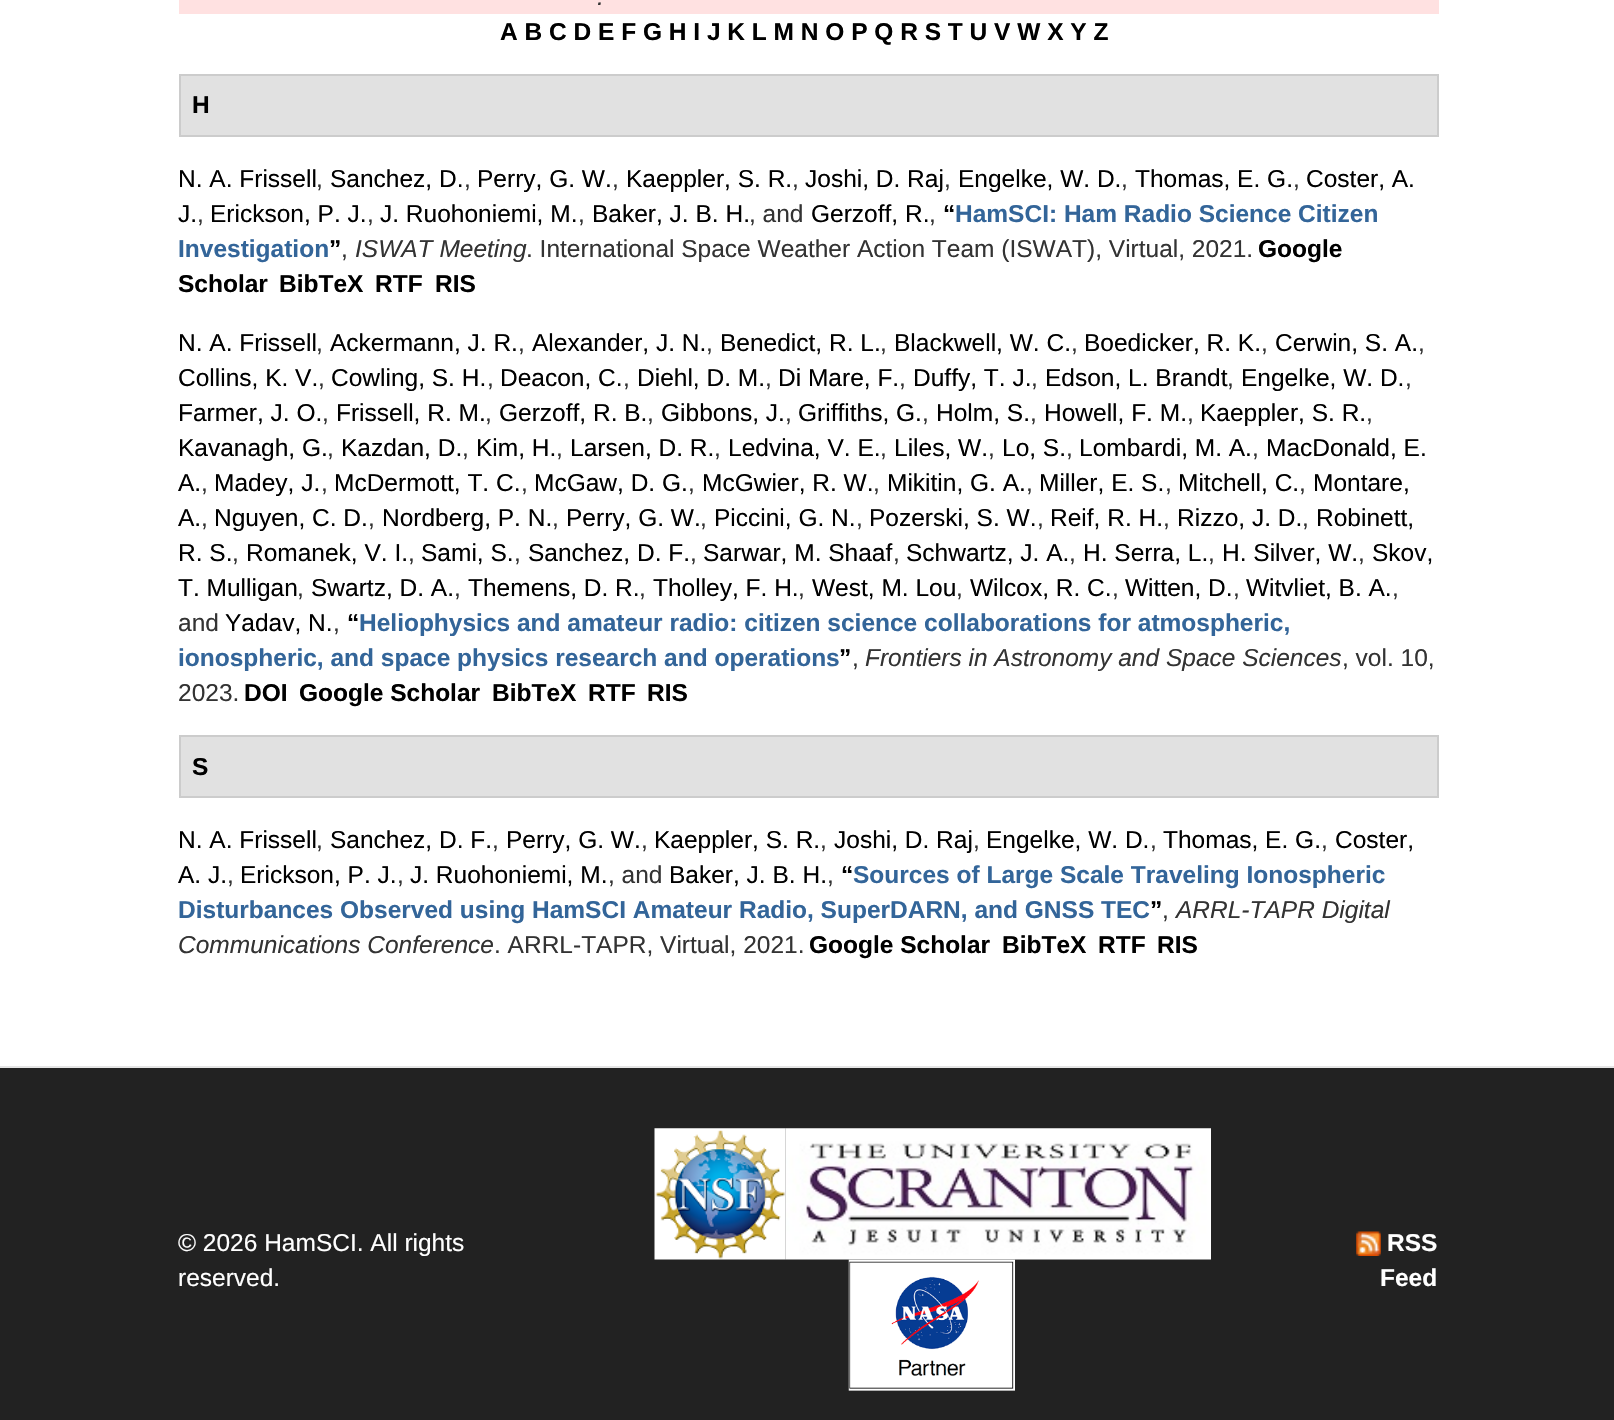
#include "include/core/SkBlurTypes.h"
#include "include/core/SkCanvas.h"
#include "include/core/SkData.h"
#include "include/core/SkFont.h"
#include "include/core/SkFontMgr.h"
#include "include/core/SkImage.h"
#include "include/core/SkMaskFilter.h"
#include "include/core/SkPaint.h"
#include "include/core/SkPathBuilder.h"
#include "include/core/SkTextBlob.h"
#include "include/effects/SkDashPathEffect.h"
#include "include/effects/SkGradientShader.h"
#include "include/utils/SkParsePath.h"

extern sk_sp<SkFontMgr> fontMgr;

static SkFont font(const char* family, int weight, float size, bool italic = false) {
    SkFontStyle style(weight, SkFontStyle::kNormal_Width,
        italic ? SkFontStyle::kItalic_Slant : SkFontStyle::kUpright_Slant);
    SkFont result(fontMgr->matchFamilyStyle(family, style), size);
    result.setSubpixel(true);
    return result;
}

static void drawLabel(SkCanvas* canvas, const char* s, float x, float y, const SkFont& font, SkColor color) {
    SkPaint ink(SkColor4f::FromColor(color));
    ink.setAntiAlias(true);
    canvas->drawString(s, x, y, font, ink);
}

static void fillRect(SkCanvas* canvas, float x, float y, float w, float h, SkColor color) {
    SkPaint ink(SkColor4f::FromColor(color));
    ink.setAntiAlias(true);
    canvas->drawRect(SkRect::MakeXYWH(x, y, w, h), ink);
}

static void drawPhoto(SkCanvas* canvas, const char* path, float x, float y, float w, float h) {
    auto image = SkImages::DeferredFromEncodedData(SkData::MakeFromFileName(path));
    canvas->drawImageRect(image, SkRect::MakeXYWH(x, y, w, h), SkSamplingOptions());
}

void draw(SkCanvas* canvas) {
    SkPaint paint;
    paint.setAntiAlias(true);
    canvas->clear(0xFFFFFFFF);
    fillRect(canvas, 179, 0, 1260, 14, 0xFFFFE1E1);
    SkFont font1 = font("Liberation Sans", 400, 24.5f, true);
    drawLabel(canvas, ".", 597, 5, font1, 0xFF333333);
    SkFont font2 = font("Liberation Sans", 700, 24.5f);
    drawLabel(canvas, "A B C D E F G H I J K L M N O P Q R S T U V W X Y Z", 500, 40, font2, 0xFF000000);
    paint.setColor(0xFFE1E1E1);
    canvas->drawRect(SkRect::MakeXYWH(180, 75, 1258, 61), paint);
    paint.setStroke(true);
    paint.setStrokeWidth(2);
    paint.setColor(0xFFCCCCCC);
    canvas->drawRect(SkRect::MakeXYWH(180, 75, 1258, 61), paint);
    drawLabel(canvas, "H", 192, 113, font2, 0xFF000000);
    SkFont font3 = font("Liberation Sans", 400, 24.5f);
    drawLabel(canvas, "N. A. Frissell", 178, 187, font3, 0xFF000000);
    drawLabel(canvas, ",", 316, 187, font3, 0xFF333333);
    drawLabel(canvas, "Sanchez, D.", 330, 187, font3, 0xFF000000);
    drawLabel(canvas, ",", 464, 187, font3, 0xFF333333);
    drawLabel(canvas, "Perry, G. W.", 477, 187, font3, 0xFF000000);
    drawLabel(canvas, ",", 612, 187, font3, 0xFF333333);
    drawLabel(canvas, "Kaeppler, S. R.", 626, 187, font3, 0xFF000000);
    drawLabel(canvas, ",", 792, 187, font3, 0xFF333333);
    drawLabel(canvas, "Joshi, D. Raj", 805, 187, font3, 0xFF000000);
    drawLabel(canvas, ",", 944, 187, font3, 0xFF333333);
    drawLabel(canvas, "Engelke, W. D.", 958, 187, font3, 0xFF000000);
    drawLabel(canvas, ",", 1121, 187, font3, 0xFF333333);
    drawLabel(canvas, "Thomas, E. G.", 1135, 187, font3, 0xFF000000);
    drawLabel(canvas, ",", 1293, 187, font3, 0xFF333333);
    drawLabel(canvas, "Coster, A.", 1306, 187, font3, 0xFF000000);
    drawLabel(canvas, "J.", 178, 222, font3, 0xFF000000);
    drawLabel(canvas, "Erickson, P. J.", 210, 222, font3, 0xFF000000);
    drawLabel(canvas, "J. Ruohoniemi, M.", 380, 222, font3, 0xFF000000);
    drawLabel(canvas, "Baker, J. B. H.", 592, 222, font3, 0xFF000000);
    drawLabel(canvas, ", and", 749, 222, font3, 0xFF333333);
    drawLabel(canvas, "Gerzoff, R.", 811, 222, font3, 0xFF000000);
    drawLabel(canvas, "“", 943, 222, font2, 0xFF000000);
    drawLabel(canvas, "HamSCI: Ham Radio Science Citizen", 955, 222, font2, 0xFF336599);
    drawLabel(canvas, ",", 197, 222, font3, 0xFF333333);
    drawLabel(canvas, ",", 367, 222, font3, 0xFF333333);
    drawLabel(canvas, ",", 578, 222, font3, 0xFF333333);
    drawLabel(canvas, ",", 929, 222, font3, 0xFF333333);
    drawLabel(canvas, "Investigation", 178, 257, font2, 0xFF336599);
    drawLabel(canvas, "”", 329, 257, font2, 0xFF000000);
    drawLabel(canvas, "ISWAT Meeting", 355, 257, font1, 0xFF333333);
    drawLabel(canvas, ". International Space Weather Action Team (ISWAT), Virtual, 2021.", 526, 257, font3, 0xFF333333);
    drawLabel(canvas, "Google", 1258, 257, font2, 0xFF000000);
    drawLabel(canvas, ",", 341, 257, font3, 0xFF333333);
    drawLabel(canvas, "Scholar", 178, 292, font2, 0xFF000000);
    drawLabel(canvas, "BibTeX", 279, 292, font2, 0xFF000000);
    drawLabel(canvas, "RTF", 375, 292, font2, 0xFF000000);
    drawLabel(canvas, "RIS", 435, 292, font2, 0xFF000000);
    drawLabel(canvas, "N. A. Frissell", 178, 351, font3, 0xFF000000);
    drawLabel(canvas, ",", 316, 351, font3, 0xFF333333);
    drawLabel(canvas, "Ackermann, J. R.", 330, 351, font3, 0xFF000000);
    drawLabel(canvas, ",", 518, 351, font3, 0xFF333333);
    drawLabel(canvas, "Alexander, J. N.", 532, 351, font3, 0xFF000000);
    drawLabel(canvas, ",", 706, 351, font3, 0xFF333333);
    drawLabel(canvas, "Benedict, R. L.", 720, 351, font3, 0xFF000000);
    drawLabel(canvas, ",", 880, 351, font3, 0xFF333333);
    drawLabel(canvas, "Blackwell, W. C.", 894, 351, font3, 0xFF000000);
    drawLabel(canvas, ",", 1071, 351, font3, 0xFF333333);
    drawLabel(canvas, "Boedicker, R. K.", 1084, 351, font3, 0xFF000000);
    drawLabel(canvas, ",", 1261, 351, font3, 0xFF333333);
    drawLabel(canvas, "Cerwin, S. A.", 1275, 351, font3, 0xFF000000);
    drawLabel(canvas, ",", 1418, 351, font3, 0xFF333333);
    drawLabel(canvas, "Collins, K. V.", 178, 386, font3, 0xFF000000);
    drawLabel(canvas, ",", 318, 386, font3, 0xFF333333);
    drawLabel(canvas, "Cowling, S. H.", 331, 386, font3, 0xFF000000);
    drawLabel(canvas, ",", 487, 386, font3, 0xFF333333);
    drawLabel(canvas, "Deacon, C.", 500, 386, font3, 0xFF000000);
    drawLabel(canvas, ",", 623, 386, font3, 0xFF333333);
    drawLabel(canvas, "Diehl, D. M.", 637, 386, font3, 0xFF000000);
    drawLabel(canvas, ",", 765, 386, font3, 0xFF333333);
    drawLabel(canvas, "Di Mare, F.", 778, 386, font3, 0xFF000000);
    drawLabel(canvas, ",", 899, 386, font3, 0xFF333333);
    drawLabel(canvas, "Duffy, T. J.", 913, 386, font3, 0xFF000000);
    drawLabel(canvas, ",", 1031, 386, font3, 0xFF333333);
    drawLabel(canvas, "Edson, L. Brandt", 1045, 386, font3, 0xFF000000);
    drawLabel(canvas, ",", 1227, 386, font3, 0xFF333333);
    drawLabel(canvas, "Engelke, W. D.", 1241, 386, font3, 0xFF000000);
    drawLabel(canvas, ",", 1405, 386, font3, 0xFF333333);
    drawLabel(canvas, "Farmer, J. O.", 178, 421, font3, 0xFF000000);
    drawLabel(canvas, ",", 322, 421, font3, 0xFF333333);
    drawLabel(canvas, "Frissell, R. M.", 336, 421, font3, 0xFF000000);
    drawLabel(canvas, ",", 485, 421, font3, 0xFF333333);
    drawLabel(canvas, "Gerzoff, R. B.", 499, 421, font3, 0xFF000000);
    drawLabel(canvas, ",", 647, 421, font3, 0xFF333333);
    drawLabel(canvas, "Gibbons, J.", 661, 421, font3, 0xFF000000);
    drawLabel(canvas, ",", 785, 421, font3, 0xFF333333);
    drawLabel(canvas, "Griffiths, G.", 798, 421, font3, 0xFF000000);
    drawLabel(canvas, ",", 922, 421, font3, 0xFF333333);
    drawLabel(canvas, "Holm, S.", 936, 421, font3, 0xFF000000);
    drawLabel(canvas, ",", 1030, 421, font3, 0xFF333333);
    drawLabel(canvas, "Howell, F. M.", 1044, 421, font3, 0xFF000000);
    drawLabel(canvas, ",", 1187, 421, font3, 0xFF333333);
    drawLabel(canvas, "Kaeppler, S. R.", 1200, 421, font3, 0xFF000000);
    drawLabel(canvas, ",", 1366, 421, font3, 0xFF333333);
    drawLabel(canvas, "Kavanagh, G.", 178, 456, font3, 0xFF000000);
    drawLabel(canvas, ",", 327, 456, font3, 0xFF333333);
    drawLabel(canvas, "Kazdan, D.", 341, 456, font3, 0xFF000000);
    drawLabel(canvas, ",", 462, 456, font3, 0xFF333333);
    drawLabel(canvas, "Kim, H.", 476, 456, font3, 0xFF000000);
    drawLabel(canvas, ",", 556, 456, font3, 0xFF333333);
    drawLabel(canvas, "Larsen, D. R.", 570, 456, font3, 0xFF000000);
    drawLabel(canvas, ",", 714, 456, font3, 0xFF333333);
    drawLabel(canvas, "Ledvina, V. E.", 728, 456, font3, 0xFF000000);
    drawLabel(canvas, ",", 880, 456, font3, 0xFF333333);
    drawLabel(canvas, "Liles, W.", 894, 456, font3, 0xFF000000);
    drawLabel(canvas, ",", 988, 456, font3, 0xFF333333);
    drawLabel(canvas, "Lo, S.", 1002, 456, font3, 0xFF000000);
    drawLabel(canvas, ",", 1066, 456, font3, 0xFF333333);
    drawLabel(canvas, "Lombardi, M. A.", 1079, 456, font3, 0xFF000000);
    drawLabel(canvas, ",", 1252, 456, font3, 0xFF333333);
    drawLabel(canvas, "MacDonald, E.", 1266, 456, font3, 0xFF000000);
    drawLabel(canvas, "A.", 178, 491, font3, 0xFF000000);
    drawLabel(canvas, ",", 201, 491, font3, 0xFF333333);
    drawLabel(canvas, "Madey, J.", 214, 491, font3, 0xFF000000);
    drawLabel(canvas, ",", 321, 491, font3, 0xFF333333);
    drawLabel(canvas, "McDermott, T. C.", 334, 491, font3, 0xFF000000);
    drawLabel(canvas, ",", 521, 491, font3, 0xFF333333);
    drawLabel(canvas, "McGaw, D. G.", 534, 491, font3, 0xFF000000);
    drawLabel(canvas, ",", 688, 491, font3, 0xFF333333);
    drawLabel(canvas, "McGwier, R. W.", 702, 491, font3, 0xFF000000);
    drawLabel(canvas, ",", 873, 491, font3, 0xFF333333);
    drawLabel(canvas, "Mikitin, G. A.", 887, 491, font3, 0xFF000000);
    drawLabel(canvas, ",", 1026, 491, font3, 0xFF333333);
    drawLabel(canvas, "Miller, E. S.", 1039, 491, font3, 0xFF000000);
    drawLabel(canvas, ",", 1165, 491, font3, 0xFF333333);
    drawLabel(canvas, "Mitchell, C.", 1178, 491, font3, 0xFF000000);
    drawLabel(canvas, ",", 1299, 491, font3, 0xFF333333);
    drawLabel(canvas, "Montare,", 1313, 491, font3, 0xFF000000);
    drawLabel(canvas, "A.", 178, 526, font3, 0xFF000000);
    drawLabel(canvas, ",", 201, 526, font3, 0xFF333333);
    drawLabel(canvas, "Nguyen, C. D.", 214, 526, font3, 0xFF000000);
    drawLabel(canvas, ",", 368, 526, font3, 0xFF333333);
    drawLabel(canvas, "Nordberg, P. N.", 382, 526, font3, 0xFF000000);
    drawLabel(canvas, ",", 552, 526, font3, 0xFF333333);
    drawLabel(canvas, "Perry, G. W.", 566, 526, font3, 0xFF000000);
    drawLabel(canvas, ",", 700, 526, font3, 0xFF333333);
    drawLabel(canvas, "Piccini, G. N.", 714, 526, font3, 0xFF000000);
    drawLabel(canvas, ",", 856, 526, font3, 0xFF333333);
    drawLabel(canvas, "Pozerski, S. W.", 869, 526, font3, 0xFF000000);
    drawLabel(canvas, ",", 1037, 526, font3, 0xFF333333);
    drawLabel(canvas, "Reif, R. H.", 1050, 526, font3, 0xFF000000);
    drawLabel(canvas, ",", 1163, 526, font3, 0xFF333333);
    drawLabel(canvas, "Rizzo, J. D.", 1177, 526, font3, 0xFF000000);
    drawLabel(canvas, ",", 1302, 526, font3, 0xFF333333);
    drawLabel(canvas, "Robinett,", 1316, 526, font3, 0xFF000000);
    drawLabel(canvas, "R. S.", 178, 561, font3, 0xFF000000);
    drawLabel(canvas, ",", 232, 561, font3, 0xFF333333);
    drawLabel(canvas, "Romanek, V. I.", 246, 561, font3, 0xFF000000);
    drawLabel(canvas, ",", 408, 561, font3, 0xFF333333);
    drawLabel(canvas, "Sami, S.", 421, 561, font3, 0xFF000000);
    drawLabel(canvas, ",", 514, 561, font3, 0xFF333333);
    drawLabel(canvas, "Sanchez, D. F.", 528, 561, font3, 0xFF000000);
    drawLabel(canvas, ",", 690, 561, font3, 0xFF333333);
    drawLabel(canvas, "Sarwar, M. Shaaf", 703, 561, font3, 0xFF000000);
    drawLabel(canvas, ",", 893, 561, font3, 0xFF333333);
    drawLabel(canvas, "Schwartz, J. A.", 906, 561, font3, 0xFF000000);
    drawLabel(canvas, ",", 1069, 561, font3, 0xFF333333);
    drawLabel(canvas, "H. Serra, L.", 1083, 561, font3, 0xFF000000);
    drawLabel(canvas, ",", 1208, 561, font3, 0xFF333333);
    drawLabel(canvas, "H. Silver, W.", 1222, 561, font3, 0xFF000000);
    drawLabel(canvas, ",", 1358, 561, font3, 0xFF333333);
    drawLabel(canvas, "Skov,", 1372, 561, font3, 0xFF000000);
    drawLabel(canvas, "T. Mulligan", 178, 596, font3, 0xFF000000);
    drawLabel(canvas, ",", 297, 596, font3, 0xFF333333);
    drawLabel(canvas, "Swartz, D. A.", 311, 596, font3, 0xFF000000);
    drawLabel(canvas, ",", 454, 596, font3, 0xFF333333);
    drawLabel(canvas, "Themens, D. R.", 468, 596, font3, 0xFF000000);
    drawLabel(canvas, ",", 639, 596, font3, 0xFF333333);
    drawLabel(canvas, "Tholley, F. H.", 653, 596, font3, 0xFF000000);
    drawLabel(canvas, ",", 798, 596, font3, 0xFF333333);
    drawLabel(canvas, "West, M. Lou", 812, 596, font3, 0xFF000000);
    drawLabel(canvas, ",", 956, 596, font3, 0xFF333333);
    drawLabel(canvas, "Wilcox, R. C.", 970, 596, font3, 0xFF000000);
    drawLabel(canvas, ",", 1112, 596, font3, 0xFF333333);
    drawLabel(canvas, "Witten, D.", 1125, 596, font3, 0xFF000000);
    drawLabel(canvas, ",", 1233, 596, font3, 0xFF333333);
    drawLabel(canvas, "Witvliet, B. A.", 1246, 596, font3, 0xFF000000);
    drawLabel(canvas, ",", 1392, 596, font3, 0xFF333333);
    drawLabel(canvas, "and", 178, 631, font3, 0xFF333333);
    drawLabel(canvas, "Yadav, N.", 225, 631, font3, 0xFF000000);
    drawLabel(canvas, "“", 347, 631, font2, 0xFF000000);
    drawLabel(canvas, "Heliophysics and amateur radio: citizen science collaborations for atmospheric,", 359, 631, font2, 0xFF336599);
    drawLabel(canvas, ",", 333, 631, font3, 0xFF333333);
    drawLabel(canvas, "ionospheric, and space physics research and operations", 178, 666, font2, 0xFF336599);
    drawLabel(canvas, "”", 839, 666, font2, 0xFF000000);
    drawLabel(canvas, "Frontiers in Astronomy and Space Sciences", 865, 666, font1, 0xFF333333);
    drawLabel(canvas, ", vol. 10,", 1342, 666, font3, 0xFF333333);
    drawLabel(canvas, ",", 852, 666, font3, 0xFF333333);
    drawLabel(canvas, "2023.", 178, 701, font3, 0xFF333333);
    drawLabel(canvas, "DOI", 244, 701, font2, 0xFF000000);
    drawLabel(canvas, "Google Scholar", 299, 701, font2, 0xFF000000);
    drawLabel(canvas, "BibTeX", 492, 701, font2, 0xFF000000);
    drawLabel(canvas, "RTF", 588, 701, font2, 0xFF000000);
    drawLabel(canvas, "RIS", 647, 701, font2, 0xFF000000);
    paint.setStroke(false);
    paint.setColor(0xFFE1E1E1);
    canvas->drawRect(SkRect::MakeXYWH(180, 736, 1258, 61), paint);
    paint.setStroke(true);
    paint.setColor(0xFFCCCCCC);
    canvas->drawRect(SkRect::MakeXYWH(180, 736, 1258, 61), paint);
    drawLabel(canvas, "S", 192, 775, font2, 0xFF000000);
    drawLabel(canvas, "N. A. Frissell", 178, 848, font3, 0xFF000000);
    drawLabel(canvas, ",", 316, 848, font3, 0xFF333333);
    drawLabel(canvas, "Sanchez, D. F.", 330, 848, font3, 0xFF000000);
    drawLabel(canvas, ",", 492, 848, font3, 0xFF333333);
    drawLabel(canvas, "Perry, G. W.", 506, 848, font3, 0xFF000000);
    drawLabel(canvas, ",", 641, 848, font3, 0xFF333333);
    drawLabel(canvas, "Kaeppler, S. R.", 654, 848, font3, 0xFF000000);
    drawLabel(canvas, ",", 820, 848, font3, 0xFF333333);
    drawLabel(canvas, "Joshi, D. Raj", 834, 848, font3, 0xFF000000);
    drawLabel(canvas, ",", 973, 848, font3, 0xFF333333);
    drawLabel(canvas, "Engelke, W. D.", 986, 848, font3, 0xFF000000);
    drawLabel(canvas, ",", 1150, 848, font3, 0xFF333333);
    drawLabel(canvas, "Thomas, E. G.", 1163, 848, font3, 0xFF000000);
    drawLabel(canvas, ",", 1321, 848, font3, 0xFF333333);
    drawLabel(canvas, "Coster,", 1335, 848, font3, 0xFF000000);
    drawLabel(canvas, "A. J.", 178, 883, font3, 0xFF000000);
    drawLabel(canvas, "Erickson, P. J.", 240, 883, font3, 0xFF000000);
    drawLabel(canvas, "J. Ruohoniemi, M.", 410, 883, font3, 0xFF000000);
    drawLabel(canvas, ", and", 608, 883, font3, 0xFF333333);
    drawLabel(canvas, "Baker, J. B. H.", 669, 883, font3, 0xFF000000);
    drawLabel(canvas, "“", 841, 883, font2, 0xFF000000);
    drawLabel(canvas, "Sources of Large Scale Traveling Ionospheric", 853, 883, font2, 0xFF336599);
    drawLabel(canvas, ",", 227, 883, font3, 0xFF333333);
    drawLabel(canvas, ",", 397, 883, font3, 0xFF333333);
    drawLabel(canvas, ",", 827, 883, font3, 0xFF333333);
    drawLabel(canvas, "Disturbances Observed using HamSCI Amateur Radio, SuperDARN, and GNSS TEC", 178, 918, font2, 0xFF336599);
    drawLabel(canvas, "”", 1150, 918, font2, 0xFF000000);
    drawLabel(canvas, "ARRL-TAPR Digital", 1176, 918, font1, 0xFF333333);
    drawLabel(canvas, ",", 1162, 918, font3, 0xFF333333);
    drawLabel(canvas, "Communications Conference", 178, 953, font1, 0xFF333333);
    drawLabel(canvas, ". ARRL-TAPR, Virtual, 2021.", 494, 953, font3, 0xFF333333);
    drawLabel(canvas, "Google Scholar", 809, 953, font2, 0xFF000000);
    drawLabel(canvas, "BibTeX", 1002, 953, font2, 0xFF000000);
    drawLabel(canvas, "RTF", 1098, 953, font2, 0xFF000000);
    drawLabel(canvas, "RIS", 1157, 953, font2, 0xFF000000);
    fillRect(canvas, 0, 1068, 1614, 352, 0xFF222222);
    fillRect(canvas, 0, 1066, 1614, 2, 0xFFE5E5E5);
    drawLabel(canvas, "© 2026 HamSCI. All rights", 178, 1251, font3, 0xFFFFFFFF);
    drawLabel(canvas, "reserved.", 178, 1286, font3, 0xFFFFFFFF);
    drawPhoto(canvas, "assets/img1.png", 654, 1128, 132, 132);
    drawPhoto(canvas, "assets/img2.png", 785, 1128, 426, 132);
    drawPhoto(canvas, "assets/img3.png", 848, 1259, 167, 132);
    drawPhoto(canvas, "assets/img4.png", 1356, 1231, 25, 25);
    drawLabel(canvas, "RSS", 1387, 1251, font2, 0xFFFFFFFF);
    drawLabel(canvas, "Feed", 1380, 1286, font2, 0xFFFFFFFF);
}
